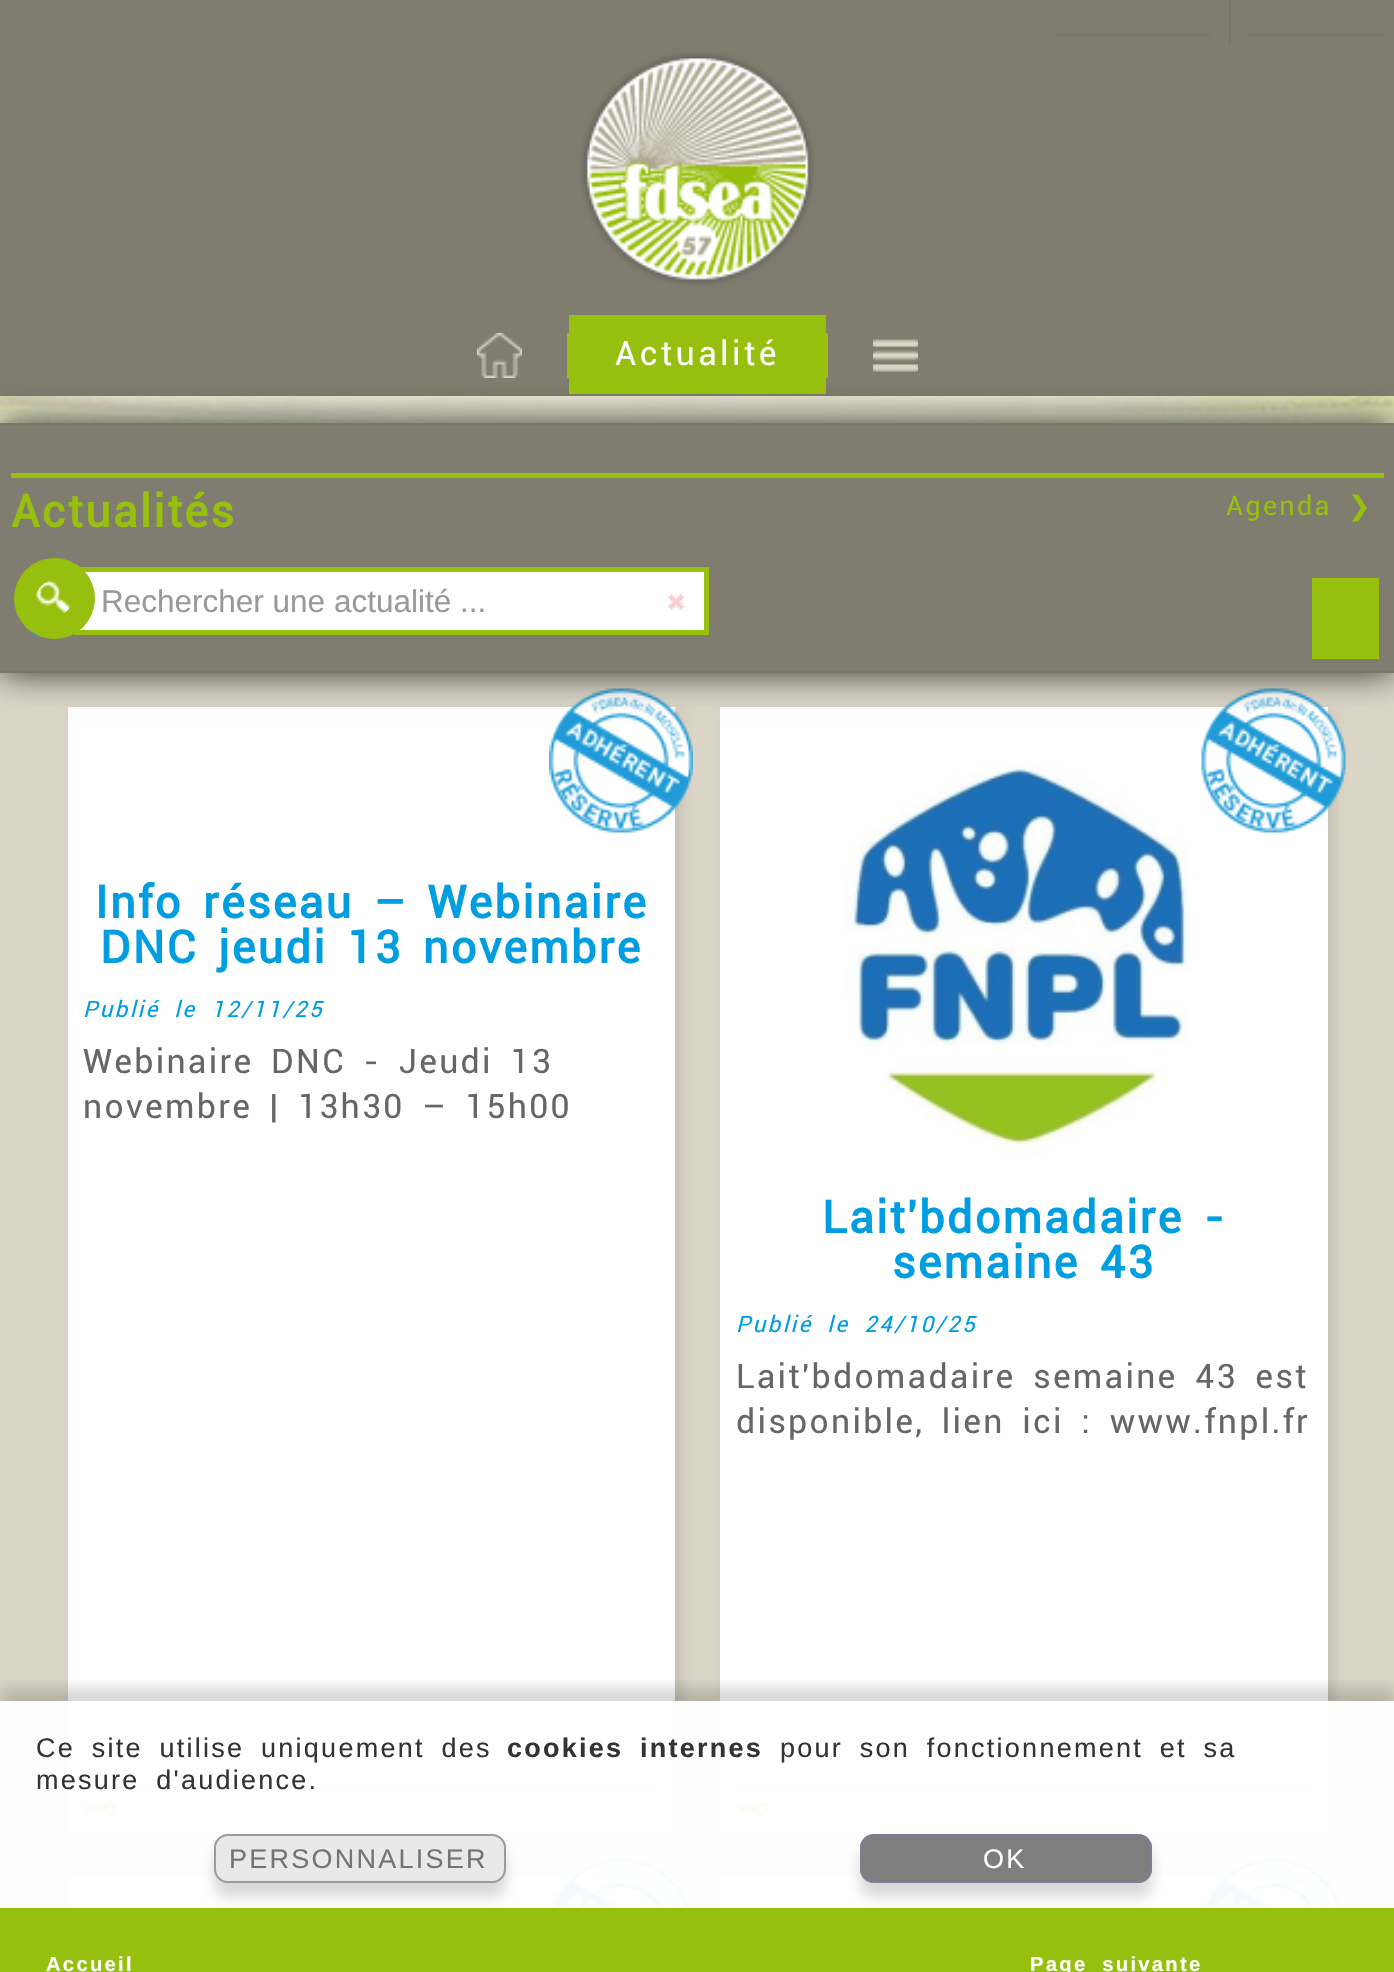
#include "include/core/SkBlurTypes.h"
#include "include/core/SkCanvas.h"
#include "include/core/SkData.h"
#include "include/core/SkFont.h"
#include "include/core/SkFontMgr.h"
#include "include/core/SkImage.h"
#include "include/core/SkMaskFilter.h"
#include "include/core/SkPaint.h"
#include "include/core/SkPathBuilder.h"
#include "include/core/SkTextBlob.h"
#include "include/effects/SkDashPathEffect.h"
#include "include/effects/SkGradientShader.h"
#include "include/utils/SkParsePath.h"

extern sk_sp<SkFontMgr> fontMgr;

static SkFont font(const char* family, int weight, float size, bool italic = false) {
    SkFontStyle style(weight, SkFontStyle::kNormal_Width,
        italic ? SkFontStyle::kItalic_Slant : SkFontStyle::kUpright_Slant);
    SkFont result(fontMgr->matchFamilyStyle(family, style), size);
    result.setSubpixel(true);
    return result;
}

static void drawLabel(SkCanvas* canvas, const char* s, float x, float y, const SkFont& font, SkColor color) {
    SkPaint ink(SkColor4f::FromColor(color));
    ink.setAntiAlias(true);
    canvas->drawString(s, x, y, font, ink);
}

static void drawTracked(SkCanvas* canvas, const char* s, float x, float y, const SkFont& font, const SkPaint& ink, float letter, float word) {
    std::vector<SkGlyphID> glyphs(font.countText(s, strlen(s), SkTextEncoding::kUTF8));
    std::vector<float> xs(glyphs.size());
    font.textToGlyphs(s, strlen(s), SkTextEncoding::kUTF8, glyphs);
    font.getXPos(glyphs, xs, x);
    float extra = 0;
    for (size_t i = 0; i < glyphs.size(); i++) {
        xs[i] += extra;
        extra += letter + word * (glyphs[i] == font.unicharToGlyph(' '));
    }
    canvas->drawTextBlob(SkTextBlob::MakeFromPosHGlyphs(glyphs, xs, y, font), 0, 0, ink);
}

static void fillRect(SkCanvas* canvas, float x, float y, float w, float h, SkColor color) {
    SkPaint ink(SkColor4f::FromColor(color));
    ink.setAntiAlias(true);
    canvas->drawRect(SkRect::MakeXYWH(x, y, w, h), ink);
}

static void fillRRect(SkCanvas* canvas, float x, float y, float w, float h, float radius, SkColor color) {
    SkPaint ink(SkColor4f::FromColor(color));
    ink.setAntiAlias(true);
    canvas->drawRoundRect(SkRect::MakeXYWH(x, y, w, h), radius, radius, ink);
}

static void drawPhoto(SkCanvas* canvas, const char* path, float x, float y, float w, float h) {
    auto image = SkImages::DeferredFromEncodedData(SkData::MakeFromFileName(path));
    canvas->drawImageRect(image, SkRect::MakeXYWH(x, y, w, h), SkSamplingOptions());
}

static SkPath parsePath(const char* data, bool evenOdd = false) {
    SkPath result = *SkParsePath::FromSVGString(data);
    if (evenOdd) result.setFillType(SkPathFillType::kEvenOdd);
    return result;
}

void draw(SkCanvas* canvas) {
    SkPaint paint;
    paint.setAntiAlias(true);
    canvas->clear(0xFF807C70);
    fillRect(canvas, 1055, 34, 156, 2, 0xFF79766A);
    fillRect(canvas, 1229, 0, 2, 45, 0xFF79766A);
    fillRect(canvas, 1249, 34, 135, 2, 0xFF79766A);
    drawPhoto(canvas, "assets/img1.png", 580, 51, 235, 235);
    drawPhoto(canvas, "assets/img4.png", 0, 396, 1394, 27);
    fillRect(canvas, 0, 673, 1394, 1233, 0xFFDBD6C8);
    paint.setColor(0x1A000000);
    paint.setMaskFilter(SkMaskFilter::MakeBlur(kNormal_SkBlurStyle, 5.5f));
    canvas->drawRect(SkRect::MakeXYWH(74, 713, 608, 1125), paint);
    paint.setMaskFilter(nullptr);
    fillRect(canvas, 68, 707, 607, 1125, 0xFFFFFFFF);
    drawPhoto(canvas, "assets/img7.png", 549, 688, 144, 145);
    paint.setMaskFilter(SkMaskFilter::MakeBlur(kNormal_SkBlurStyle, 5.5f));
    canvas->drawRect(SkRect::MakeXYWH(727, 713, 607, 1125), paint);
    paint.setMaskFilter(nullptr);
    fillRect(canvas, 720, 707, 608, 1125, 0xFFFFFFFF);
    drawPhoto(canvas, "assets/img10.png", 1201, 688, 145, 145);
    paint.setColor(0xCC000000);
    paint.setMaskFilter(SkMaskFilter::MakeBlur(kNormal_SkBlurStyle, 17));
    canvas->drawRect(SkRect::MakeXYWH(0, 423, 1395, 250), paint);
    paint.setMaskFilter(nullptr);
    drawPhoto(canvas, "assets/img2.png", 477, 333, 45, 45);
    fillRect(canvas, 567, 333, 2, 45, 0xFF97BF0D);
    fillRect(canvas, 569, 315, 257, 79, 0xFF97BF0D);
    SkFont font1 = font("Roboto", 400, 33.75f);
    paint.setColor(0xFFFFFFFF);
    drawTracked(canvas, "Actualité", 615, 365, font1, paint, 3.4f, 0);
    fillRect(canvas, 826, 333, 2, 45, 0xFF97BF0D);
    drawPhoto(canvas, "assets/img3.png", 873, 339, 45, 33);
    fillRect(canvas, 0, 425, 1394, 246, 0xFF807C70);
    fillRect(canvas, 0, 423, 1394, 2, 0xFF79766A);
    fillRect(canvas, 0, 671, 1394, 2, 0xFF79766A);
    fillRect(canvas, 11, 473, 1373, 5, 0xFF97BF0D);
    SkFont font2 = font("Roboto", 700, 45);
    paint.setColor(0xFF97BF0D);
    drawTracked(canvas, "Actualités", 11, 527, font2, paint, 2.25f, 0);
    SkFont font3 = font("Roboto", 400, 27);
    drawTracked(canvas, "Agenda", 1226, 515, font3, paint, 2.25f, 0);
    SkFont font4 = font("DejaVu Sans", 400, 27);
    drawTracked(canvas, "❯", 1348, 515, font4, paint, 2.25f, 0);
    fillRect(canvas, 34, 633, 40, 2, 0xFF009EE0);
    fillRect(canvas, 80, 572, 624, 58, 0xFFFFFFFF);
    paint.setStroke(true);
    paint.setStrokeWidth(5);
    canvas->drawRect(SkRect::MakeXYWH(76.5f, 569.5f, 630, 63), paint);
    paint.setStroke(false);
    canvas->drawCircle(54.5f, 598.5f, 40.5f, paint);
    drawPhoto(canvas, "assets/img5.png", 36, 580, 35, 33);
    SkFont font5 = font("Liberation Sans", 400, 31.5f);
    drawLabel(canvas, "Rechercher une actualité ...", 101, 612, font5, 0xFF999999);
    drawPhoto(canvas, "assets/img6.png", 667, 593, 18, 18);
    fillRect(canvas, 1312, 578, 67, 81, 0xFF97BF0D);
    paint.setColor(0xFF009EE0);
    drawTracked(canvas, "Info réseau – Webinaire", 95, 918, font2, paint, 2.25f, 7);
    drawTracked(canvas, "DNC jeudi 13 novembre", 100, 963, font2, paint, 2.25f, 7);
    SkFont font6 = font("Roboto", 400, 22.5f, true);
    drawTracked(canvas, "Publié le 12/11/25", 83, 1017, font6, paint, 2.25f, 7);
    paint.setColor(0xFF666666);
    drawTracked(canvas, "Webinaire DNC - Jeudi 13", 83, 1073, font1, paint, 2.25f, 7);
    drawTracked(canvas, "novembre | 13h30 – 15h00", 83, 1118, font1, paint, 2.25f, 7);
    paint.setStroke(true);
    paint.setStrokeWidth(2.2f);
    paint.setColor(0xFFAAAAAA);
    paint.setPathEffect(SkDashPathEffect::Make({{2.25f, 2.25f}}, 0));
    canvas->drawPath(parsePath("M83 1787.5H659"), paint);
    paint.setPathEffect(nullptr);
    drawPhoto(canvas, "assets/img8.png", 85, 1799, 33, 19);
    drawPhoto(canvas, "assets/img9.png", 844, 760, 346, 397);
    paint.setStroke(false);
    paint.setColor(0xFF009EE0);
    drawTracked(canvas, "Lait'bdomadaire -", 822, 1233, font2, paint, 2.25f, 7);
    drawTracked(canvas, "semaine 43", 892, 1278, font2, paint, 2.25f, 7);
    drawTracked(canvas, "Publié le 24/10/25", 736, 1332, font6, paint, 2.25f, 7);
    paint.setColor(0xFF666666);
    drawTracked(canvas, "Lait'bdomadaire semaine 43 est", 736, 1388, font1, paint, 2.25f, 7);
    drawTracked(canvas, "disponible, lien ici : www.fnpl.fr", 736, 1433, font1, paint, 2.25f, 7);
    paint.setStroke(true);
    paint.setColor(0xFFAAAAAA);
    paint.setPathEffect(SkDashPathEffect::Make({{2.25f, 2.25f}}, 0));
    canvas->drawPath(parsePath("M736 1787.5H1312"), paint);
    paint.setPathEffect(nullptr);
    drawPhoto(canvas, "assets/img11.png", 737, 1799, 34, 19);
    paint.setStroke(false);
    paint.setColor(0x1A000000);
    paint.setMaskFilter(SkMaskFilter::MakeBlur(kNormal_SkBlurStyle, 5.5f));
    canvas->drawRect(SkRect::MakeXYWH(74, 1883, 608, 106), paint);
    paint.setMaskFilter(nullptr);
    fillRect(canvas, 68, 1877, 607, 29, 0xFFFFFFFF);
    drawPhoto(canvas, "assets/img12.png", 146, 1894, 451, 12);
    drawPhoto(canvas, "assets/img13.png", 551, 1858, 140, 48);
    paint.setMaskFilter(SkMaskFilter::MakeBlur(kNormal_SkBlurStyle, 5.5f));
    canvas->drawRect(SkRect::MakeXYWH(727, 1883, 607, 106), paint);
    paint.setMaskFilter(nullptr);
    fillRect(canvas, 720, 1877, 608, 29, 0xFFFFFFFF);
    drawPhoto(canvas, "assets/img14.png", 1204, 1858, 139, 48);
    canvas->save();
    canvas->clipRect(SkRect::MakeXYWH(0, 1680, 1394, 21));
    paint.setColor(0x29000000);
    paint.setMaskFilter(SkMaskFilter::MakeBlur(kNormal_SkBlurStyle, 7));
    canvas->drawRect(SkRect::MakeXYWH(0, 1688, 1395, 272), paint);
    paint.setMaskFilter(nullptr);
    canvas->restore();
    fillRect(canvas, 0, 1701, 1394, 205, 0xF2FFFFFF);
    paint.setColor(0x29140E0E);
    paint.setMaskFilter(SkMaskFilter::MakeBlur(kNormal_SkBlurStyle, 7));
    canvas->drawRoundRect(SkRect::MakeXYWH(214, 1847, 292, 50), 14, 14, paint);
    paint.setMaskFilter(nullptr);
    paint.setMaskFilter(SkMaskFilter::MakeBlur(kNormal_SkBlurStyle, 7));
    canvas->drawRoundRect(SkRect::MakeXYWH(860, 1847, 292, 50), 14, 14, paint);
    paint.setMaskFilter(nullptr);
    fillRect(canvas, 0, 1908, 1394, 64, 0xFF97BF0D);
    fillRect(canvas, 0, 1906, 1394, 2, 0xFFFFFFFF);
    SkFont font7 = font("Liberation Sans", 700, 20.25f);
    paint.setColor(0xFFFFFFFF);
    drawTracked(canvas, "Accueil", 46, 1971, font7, paint, 2.25f, 0);
    drawTracked(canvas, "Page suivante", 1030, 1971, font7, paint, 2.25f, 7);
    SkFont font8 = font("Liberation Sans", 400, 27);
    paint.setColor(0xFF333333);
    drawTracked(canvas, "Ce site utilise uniquement des", 36, 1757, font8, paint, 2.25f, 7);
    SkFont font9 = font("Liberation Sans", 700, 27);
    drawTracked(canvas, "cookies internes", 507, 1757, font9, paint, 2.25f, 7);
    drawTracked(canvas, "pour son fonctionnement et sa", 780, 1757, font8, paint, 2.25f, 7);
    drawTracked(canvas, "mesure d'audience.", 36, 1789, font8, paint, 2.25f, 7);
    fillRRect(canvas, 214, 1834, 292, 49, 14, 0xFFE9E9E9);
    paint.setStroke(true);
    paint.setStrokeWidth(2);
    paint.setColor(0x99676767);
    canvas->drawRoundRect(SkRect::MakeXYWH(215, 1835, 290, 47), 13, 13, paint);
    paint.setStroke(false);
    paint.setColor(0xFF747474);
    drawTracked(canvas, "PERSONNALISER", 229, 1868, font8, paint, 2.25f, 0);
    fillRRect(canvas, 860, 1834, 292, 49, 14, 0xFF7E7E7E);
    paint.setStroke(true);
    paint.setColor(0xA87980A6);
    canvas->drawRoundRect(SkRect::MakeXYWH(861, 1835, 290, 47), 13, 13, paint);
    paint.setStroke(false);
    paint.setColor(0xFFFFFFFF);
    drawTracked(canvas, "OK", 983, 1868, font8, paint, 2.25f, 0);
}
